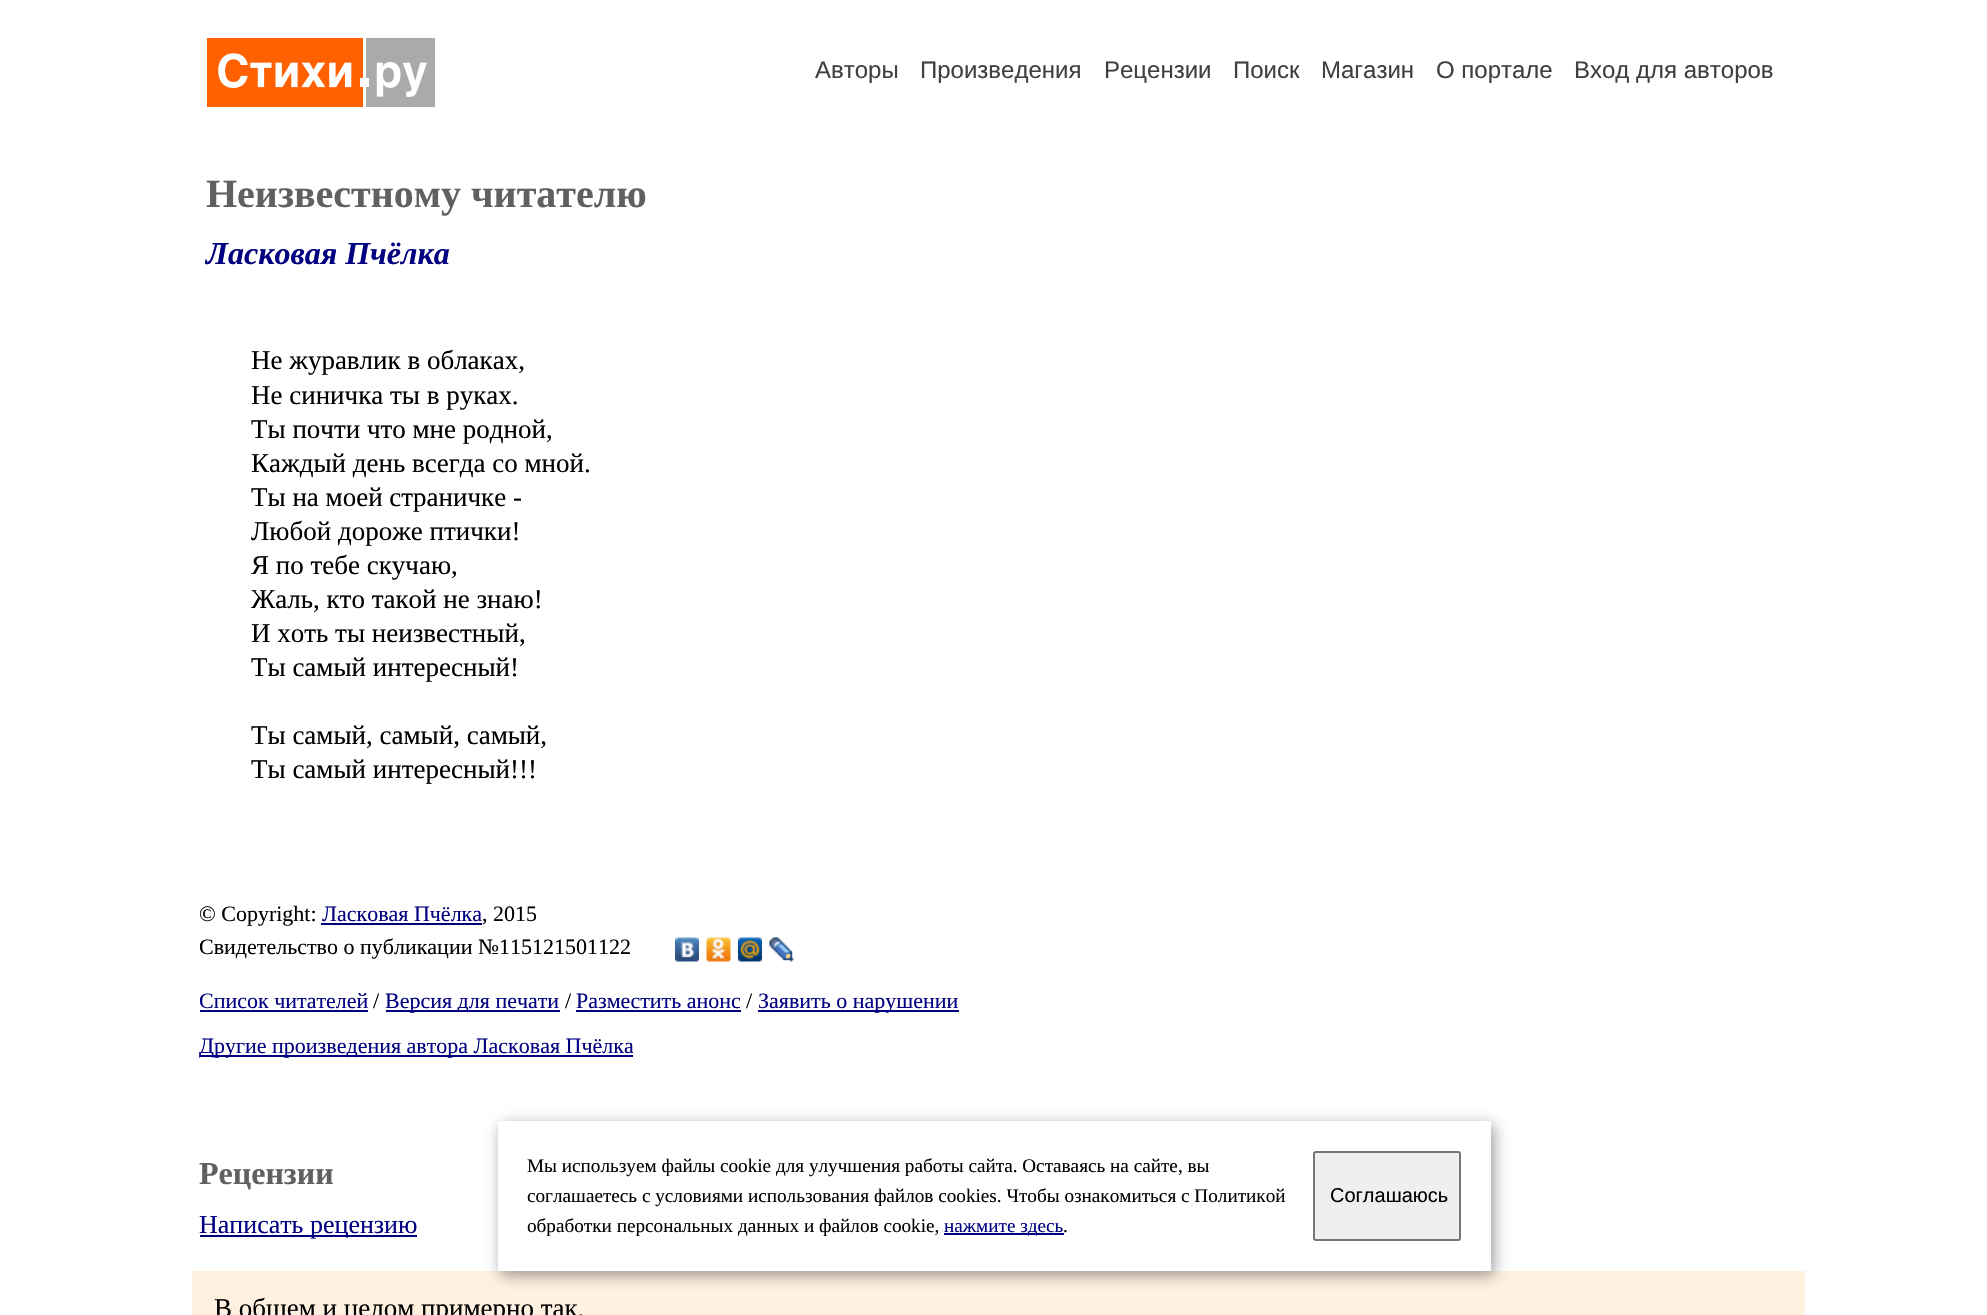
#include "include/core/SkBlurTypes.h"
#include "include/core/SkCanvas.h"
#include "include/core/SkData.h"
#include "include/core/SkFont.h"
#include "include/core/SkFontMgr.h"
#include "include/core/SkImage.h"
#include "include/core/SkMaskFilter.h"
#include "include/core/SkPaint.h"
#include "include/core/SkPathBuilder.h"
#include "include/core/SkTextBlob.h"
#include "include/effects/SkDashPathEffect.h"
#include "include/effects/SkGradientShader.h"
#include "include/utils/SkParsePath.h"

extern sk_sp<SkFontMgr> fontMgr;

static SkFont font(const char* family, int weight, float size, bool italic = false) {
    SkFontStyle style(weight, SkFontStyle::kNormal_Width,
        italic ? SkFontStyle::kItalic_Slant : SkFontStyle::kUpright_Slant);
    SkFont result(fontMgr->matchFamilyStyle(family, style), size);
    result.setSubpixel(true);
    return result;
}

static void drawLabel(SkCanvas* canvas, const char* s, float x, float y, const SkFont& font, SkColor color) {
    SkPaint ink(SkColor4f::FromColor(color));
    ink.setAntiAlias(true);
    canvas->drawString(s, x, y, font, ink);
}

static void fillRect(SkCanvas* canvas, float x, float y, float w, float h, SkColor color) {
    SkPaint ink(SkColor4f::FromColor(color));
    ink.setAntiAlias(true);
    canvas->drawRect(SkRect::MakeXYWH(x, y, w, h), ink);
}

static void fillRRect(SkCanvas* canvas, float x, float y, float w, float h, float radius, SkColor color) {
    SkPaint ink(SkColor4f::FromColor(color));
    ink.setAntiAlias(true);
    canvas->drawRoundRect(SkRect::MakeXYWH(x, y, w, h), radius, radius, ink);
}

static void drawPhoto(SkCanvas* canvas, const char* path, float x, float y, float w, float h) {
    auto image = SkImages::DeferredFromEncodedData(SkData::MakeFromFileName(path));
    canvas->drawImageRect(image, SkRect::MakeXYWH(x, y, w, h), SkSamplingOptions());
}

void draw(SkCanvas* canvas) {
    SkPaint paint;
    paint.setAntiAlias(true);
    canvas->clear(0xFFFFFFFF);
    drawPhoto(canvas, "assets/img1.png", 207, 38, 228, 69);
    SkFont font1 = font("Liberation Sans", 400, 24);
    drawLabel(canvas, "Авторы", 815, 78, font1, 0xFF404040);
    drawLabel(canvas, "Произведения", 920, 78, font1, 0xFF404040);
    drawLabel(canvas, "Рецензии", 1104, 78, font1, 0xFF404040);
    drawLabel(canvas, "Поиск", 1233, 78, font1, 0xFF404040);
    drawLabel(canvas, "Магазин", 1321, 78, font1, 0xFF404040);
    drawLabel(canvas, "О портале", 1436, 78, font1, 0xFF404040);
    drawLabel(canvas, "Вход для авторов", 1574, 78, font1, 0xFF404040);
    SkFont font2 = font("Liberation Serif", 700, 40);
    drawLabel(canvas, "Неизвестному читателю", 206, 207, font2, 0xFF606060);
    SkFont font3 = font("Liberation Serif", 700, 32, true);
    drawLabel(canvas, "Ласковая Пчёлка", 206, 264, font3, 0xFF000080);
    SkFont font4 = font("Liberation Serif", 400, 27);
    drawLabel(canvas, "Не журавлик в облаках,", 251, 369, font4, 0xFF000000);
    drawLabel(canvas, "Не синичка ты в руках.", 251, 404, font4, 0xFF000000);
    drawLabel(canvas, "Ты почти что мне родной,", 251, 438, font4, 0xFF000000);
    drawLabel(canvas, "Каждый день всегда со мной.", 251, 472, font4, 0xFF000000);
    drawLabel(canvas, "Ты на моей страничке -", 251, 506, font4, 0xFF000000);
    drawLabel(canvas, "Любой дороже птички!", 251, 540, font4, 0xFF000000);
    drawLabel(canvas, "Я по тебе скучаю,", 251, 574, font4, 0xFF000000);
    drawLabel(canvas, "Жаль, кто такой не знаю!", 251, 608, font4, 0xFF000000);
    drawLabel(canvas, "И хоть ты неизвестный,", 251, 642, font4, 0xFF000000);
    drawLabel(canvas, "Ты самый интересный!", 251, 676, font4, 0xFF000000);
    drawLabel(canvas, "Ты самый, самый, самый,", 251, 744, font4, 0xFF000000);
    drawLabel(canvas, "Ты самый интересный!!!", 251, 778, font4, 0xFF000000);
    SkFont font5 = font("Liberation Serif", 400, 22);
    drawLabel(canvas, "© Copyright:", 199, 921, font5, 0xFF000000);
    drawLabel(canvas, "Ласковая Пчёлка", 322, 921, font5, 0xFF000080);
    fillRect(canvas, 321, 923, 161, 2, 0xFF000080);
    drawLabel(canvas, ", 2015", 482, 921, font5, 0xFF000000);
    drawLabel(canvas, "Свидетельство о публикации №115121501122", 199, 954, font5, 0xFF000000);
    drawPhoto(canvas, "assets/img2.png", 675, 937, 24, 25);
    drawPhoto(canvas, "assets/img3.png", 706, 937, 25, 25);
    drawPhoto(canvas, "assets/img4.png", 738, 937, 24, 25);
    drawPhoto(canvas, "assets/img5.png", 769, 937, 25, 25);
    drawLabel(canvas, "Список читателей", 199, 1008, font5, 0xFF000080);
    fillRect(canvas, 200, 1010, 168, 2, 0xFF000080);
    drawLabel(canvas, "/", 373, 1008, font5, 0xFF000000);
    fillRect(canvas, 386, 1010, 174, 2, 0xFF000080);
    drawLabel(canvas, "Версия для печати", 385, 1008, font5, 0xFF000080);
    drawLabel(canvas, "/", 565, 1008, font5, 0xFF000000);
    drawLabel(canvas, "Разместить анонс", 576, 1008, font5, 0xFF000080);
    fillRect(canvas, 576, 1010, 165, 2, 0xFF000080);
    drawLabel(canvas, "/", 746, 1008, font5, 0xFF000000);
    fillRect(canvas, 758, 1010, 201, 2, 0xFF000080);
    drawLabel(canvas, "Заявить о нарушении", 758, 1008, font5, 0xFF000080);
    fillRect(canvas, 200, 1055, 433, 2, 0xFF000080);
    drawLabel(canvas, "Другие произведения автора Ласковая Пчёлка", 199, 1053, font5, 0xFF000080);
    SkFont font6 = font("Liberation Serif", 700, 32);
    drawLabel(canvas, "Рецензии", 199, 1184, font6, 0xFF606060);
    fillRect(canvas, 192, 1271, 1613, 44, 0xFFFFF0E0);
    paint.setColor(0x66000000);
    paint.setMaskFilter(SkMaskFilter::MakeBlur(kNormal_SkBlurStyle, 7.5f));
    canvas->drawRoundRect(SkRect::MakeXYWH(501, 1125, 993, 150), 1.5f, 1.5f, paint);
    paint.setMaskFilter(nullptr);
    fillRRect(canvas, 498, 1121, 993, 150, 1.5f, 0xFFFFFFFF);
    SkFont font7 = font("Liberation Serif", 400, 19.2f);
    drawLabel(canvas, "Мы используем файлы cookie для улучшения работы сайта. Оставаясь на сайте, вы", 527, 1172, font7, 0xFF000000);
    drawLabel(canvas, "соглашаетесь с условиями использования файлов cookies. Чтобы ознакомиться с Политикой", 527, 1202, font7, 0xFF000000);
    drawLabel(canvas, "обработки персональных данных и файлов cookie,", 527, 1232, font7, 0xFF000000);
    fillRect(canvas, 944, 1233, 120, 2, 0xFF000080);
    drawLabel(canvas, "нажмите здесь", 944, 1232, font7, 0xFF000080);
    drawLabel(canvas, ".", 1063, 1232, font7, 0xFF000000);
    paint.setColor(0xFFEFEFEF);
    canvas->drawRoundRect(SkRect::MakeXYWH(1314, 1152, 146, 88), 2, 2, paint);
    paint.setStroke(true);
    paint.setStrokeWidth(2);
    paint.setColor(0xFF767676);
    canvas->drawRoundRect(SkRect::MakeXYWH(1314, 1152, 146, 88), 2, 2, paint);
    SkFont font8 = font("Liberation Sans", 400, 20);
    drawLabel(canvas, "Соглашаюсь", 1330, 1202, font8, 0xFF000000);
    fillRect(canvas, 200, 1235, 217, 2, 0xFF000080);
    SkFont font9 = font("Liberation Serif", 400, 26);
    drawLabel(canvas, "Написать рецензию", 199, 1233, font9, 0xFF000080);
    drawLabel(canvas, "В общем и целом примерно так.", 214, 1317, font4, 0xFF000000);
}
